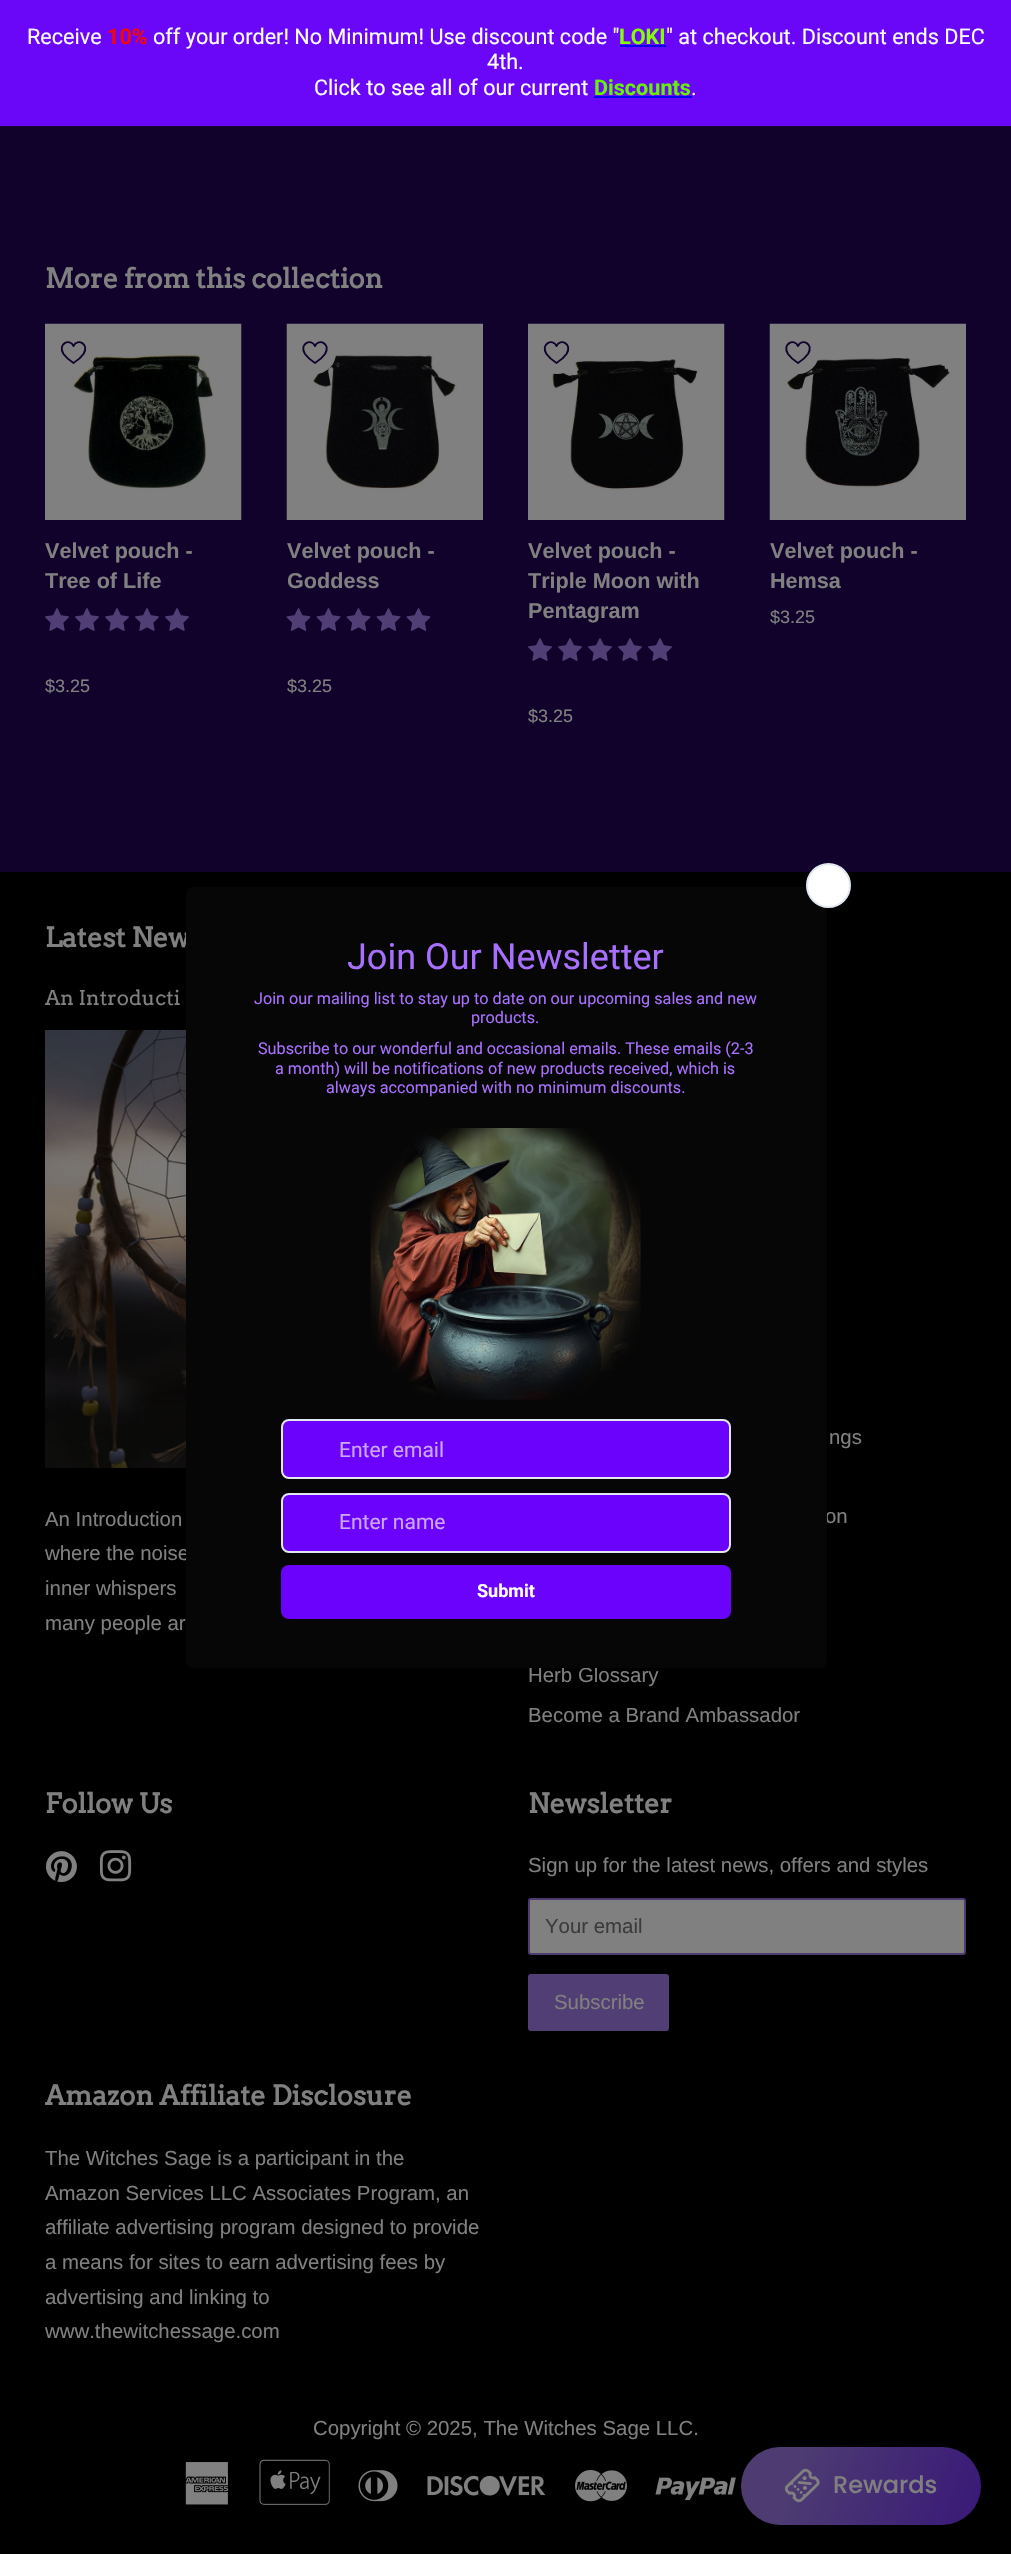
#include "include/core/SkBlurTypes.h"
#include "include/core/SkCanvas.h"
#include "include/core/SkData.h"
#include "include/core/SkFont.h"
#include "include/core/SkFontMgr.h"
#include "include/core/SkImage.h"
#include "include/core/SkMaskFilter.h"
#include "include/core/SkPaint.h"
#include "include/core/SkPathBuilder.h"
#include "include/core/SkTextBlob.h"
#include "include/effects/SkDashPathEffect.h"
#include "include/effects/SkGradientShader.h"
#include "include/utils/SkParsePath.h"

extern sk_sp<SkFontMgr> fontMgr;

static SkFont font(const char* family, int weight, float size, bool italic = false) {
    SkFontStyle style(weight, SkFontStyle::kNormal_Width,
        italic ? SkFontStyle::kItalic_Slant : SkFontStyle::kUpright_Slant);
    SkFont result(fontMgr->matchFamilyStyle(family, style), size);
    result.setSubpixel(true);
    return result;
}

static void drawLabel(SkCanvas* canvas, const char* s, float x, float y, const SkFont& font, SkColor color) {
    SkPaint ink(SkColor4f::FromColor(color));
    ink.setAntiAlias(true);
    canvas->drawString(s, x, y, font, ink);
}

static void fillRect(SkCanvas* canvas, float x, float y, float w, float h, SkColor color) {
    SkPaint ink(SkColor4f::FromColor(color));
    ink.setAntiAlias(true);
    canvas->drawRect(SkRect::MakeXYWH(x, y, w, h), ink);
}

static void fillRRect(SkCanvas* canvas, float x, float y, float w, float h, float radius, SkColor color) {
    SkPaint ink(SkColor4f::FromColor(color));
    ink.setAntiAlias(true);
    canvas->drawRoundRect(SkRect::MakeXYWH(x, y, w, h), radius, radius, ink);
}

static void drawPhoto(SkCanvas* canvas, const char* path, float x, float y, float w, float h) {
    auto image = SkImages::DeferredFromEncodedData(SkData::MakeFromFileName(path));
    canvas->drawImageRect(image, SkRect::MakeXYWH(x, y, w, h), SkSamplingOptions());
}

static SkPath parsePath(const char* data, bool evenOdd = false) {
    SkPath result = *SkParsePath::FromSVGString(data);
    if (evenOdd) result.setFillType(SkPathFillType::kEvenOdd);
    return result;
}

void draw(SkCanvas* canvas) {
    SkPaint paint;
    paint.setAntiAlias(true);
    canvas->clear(0xFF10022B);
    fillRect(canvas, 0, 0, 1011, 126, 0xFF6B07F8);
    SkFont font1 = font("Roboto", 400, 21.6f);
    drawLabel(canvas, "Receive", 27, 44, font1, 0xFFFFFFFF);
    SkFont font2 = font("Roboto", 700, 21.6f);
    drawLabel(canvas, "10%", 107, 44, font2, 0xFFF50505);
    drawLabel(canvas, "off your order! No Minimum! Use discount code \"", 153, 44, font1, 0xFFFFFFFF);
    drawLabel(canvas, "LOKI", 619, 44, font2, 0xFF83FE07);
    fillRect(canvas, 620, 45, 46, 2, 0xFF0000EE);
    drawLabel(canvas, "\" at checkout. Discount ends DEC", 666, 44, font1, 0xFFFFFFFF);
    drawLabel(canvas, "4th.", 487, 69, font1, 0xFFFFFFFF);
    drawLabel(canvas, "Click to see all of our current", 314, 95, font1, 0xFFFFFFFF);
    drawLabel(canvas, "Discounts", 594, 95, font2, 0xFF65F207);
    fillRect(canvas, 594, 96, 98, 2, 0xFF0000EE);
    drawLabel(canvas, ".", 691, 95, font1, 0xFFFFFFFF);
    fillRect(canvas, 0, 872, 1011, 1682, 0xFF000000);
    drawPhoto(canvas, "assets/img8.png", 45, 1030, 141, 438);
    paint.setColor(0x1A000000);
    paint.setMaskFilter(SkMaskFilter::MakeBlur(kNormal_SkBlurStyle, 11));
    canvas->drawRoundRect(SkRect::MakeXYWH(191, 906, 631, 773), 3, 3, paint);
    paint.setMaskFilter(nullptr);
    SkFont font3 = font("Arvo", 700, 27);
    drawLabel(canvas, "Latest New", 45, 947, font3, 0xFF808080);
    SkFont font4 = font("Liberation Sans", 400, 20.4f);
    drawLabel(canvas, "where the noise", 45, 1560, font4, 0xFF808080);
    drawLabel(canvas, "on", 825, 1523, font4, 0xFF808080);
    drawLabel(canvas, "Herb Glossary", 528, 1682, font4, 0xFF808080);
    fillRRect(canvas, 186, 887, 641, 781, 8, 0xFF060606);
    paint.setColor(0xFFFFFFFF);
    canvas->drawCircle(828.5f, 885.5f, 21.5f, paint);
    paint.setStroke(true);
    paint.setStrokeWidth(2);
    paint.setColor(0xFFE2E8F0);
    canvas->drawCircle(828.5f, 885.5f, 21.5f, paint);
    SkFont font5 = font("Roboto", 400, 36);
    drawLabel(canvas, "Join Our Newsletter", 347, 969, font5, 0xFFA970FF);
    SkFont font6 = font("Roboto", 400, 16.2f);
    drawLabel(canvas, "Join our mailing list to stay up to date on our upcoming sales and new", 254, 1004, font6, 0xFFA970FF);
    drawLabel(canvas, "products.", 471, 1023, font6, 0xFFA970FF);
    drawLabel(canvas, "Subscribe to our wonderful and occasional emails. These emails (2-3", 258, 1054, font6, 0xFFA970FF);
    drawLabel(canvas, "a month) will be notifications of new products received, which is", 275, 1074, font6, 0xFFA970FF);
    drawLabel(canvas, "always accompanied with no minimum discounts.", 326, 1093, font6, 0xFFA970FF);
    drawPhoto(canvas, "assets/img1.png", 370, 1128, 271, 272);
    paint.setStroke(false);
    paint.setColor(0xFF6B03FC);
    canvas->drawRoundRect(SkRect::MakeXYWH(282, 1420, 448, 58), 7, 7, paint);
    paint.setStroke(true);
    paint.setColor(0xFFE2E8F0);
    canvas->drawRoundRect(SkRect::MakeXYWH(282, 1420, 448, 58), 7, 7, paint);
    SkFont font7 = font("Roboto", 400, 21);
    drawLabel(canvas, "Enter email", 339, 1457, font7, 0xFFCBA7FE);
    paint.setStroke(false);
    paint.setColor(0xFF6B03FC);
    canvas->drawRoundRect(SkRect::MakeXYWH(282, 1494, 448, 58), 7, 7, paint);
    paint.setStroke(true);
    paint.setColor(0xFFE2E8F0);
    canvas->drawRoundRect(SkRect::MakeXYWH(282, 1494, 448, 58), 7, 7, paint);
    drawLabel(canvas, "Enter name", 339, 1529, font7, 0xFFCBA7FE);
    fillRRect(canvas, 281, 1565, 450, 54, 8, 0xFF6B03FC);
    SkFont font8 = font("Roboto", 700, 18);
    drawLabel(canvas, "Submit", 477, 1597, font8, 0xFFFFFFFF);
    drawLabel(canvas, "More from this collection", 45, 288, font3, 0xFF808080);
    drawPhoto(canvas, "assets/img2.png", 45, 323, 197, 197);
    paint.setStroke(false);
    paint.setColor(0xFF808080);
    canvas->drawCircle(74, 353, 21, paint);
    paint.setStroke(true);
    paint.setStrokeWidth(1.9f);
    paint.setStrokeCap(SkPaint::kRound_Cap);
    paint.setStrokeJoin(SkPaint::kRound_Join);
    paint.setColor(0xFF10022B);
    canvas->drawPath(parsePath("M73.5 363C69.5 360.5 66 357.5 63.5 354C57 343.5 70 338 73.5 346C77 338 90 343.5 83.5 354C81 357.5 77.5 360.5 73.5 363Z"), paint);
    SkFont font9 = font("Liberation Sans", 700, 21.6f);
    drawLabel(canvas, "Velvet pouch -", 45, 558, font9, 0xFF808080);
    drawLabel(canvas, "Tree of Life", 45, 588, font9, 0xFF808080);
    drawPhoto(canvas, "assets/img3.png", 45, 608, 24, 23);
    drawPhoto(canvas, "assets/img3.png", 75, 608, 24, 23);
    drawPhoto(canvas, "assets/img3.png", 105, 608, 24, 23);
    drawPhoto(canvas, "assets/img3.png", 135, 608, 24, 23);
    drawPhoto(canvas, "assets/img3.png", 165, 608, 24, 23);
    SkFont font10 = font("Liberation Sans", 400, 18);
    drawLabel(canvas, "$3.25", 45, 692, font10, 0xFF808080);
    drawPhoto(canvas, "assets/img4.png", 286, 323, 197, 197);
    paint.setStroke(false);
    paint.setColor(0xFF808080);
    canvas->drawCircle(315, 353, 21, paint);
    paint.setStroke(true);
    paint.setColor(0xFF10022B);
    canvas->drawPath(parsePath("M315 363C311 360.5 307.5 357.5 305 354C298.5 343.5 311.5 338 315 346C318.5 338 331.5 343.5 325 354C322.5 357.5 319 360.5 315 363Z"), paint);
    drawLabel(canvas, "Velvet pouch -", 287, 558, font9, 0xFF808080);
    drawLabel(canvas, "Goddess", 287, 588, font9, 0xFF808080);
    drawPhoto(canvas, "assets/img5.png", 286, 608, 25, 23);
    drawPhoto(canvas, "assets/img5.png", 316, 608, 25, 23);
    drawPhoto(canvas, "assets/img5.png", 346, 608, 25, 23);
    drawPhoto(canvas, "assets/img5.png", 376, 608, 25, 23);
    drawPhoto(canvas, "assets/img5.png", 406, 608, 25, 23);
    drawLabel(canvas, "$3.25", 287, 692, font10, 0xFF808080);
    drawPhoto(canvas, "assets/img6.png", 528, 323, 197, 197);
    paint.setStroke(false);
    paint.setColor(0xFF808080);
    canvas->drawCircle(557, 353, 21, paint);
    paint.setStroke(true);
    paint.setColor(0xFF10022B);
    canvas->drawPath(parsePath("M556.5 363C552.5 360.5 549 357.5 546.5 354C540 343.5 553 338 556.5 346C560 338 573 343.5 566.5 354C564 357.5 560.5 360.5 556.5 363Z"), paint);
    drawLabel(canvas, "Velvet pouch -", 528, 558, font9, 0xFF808080);
    drawLabel(canvas, "Triple Moon with", 528, 588, font9, 0xFF808080);
    drawLabel(canvas, "Pentagram", 528, 618, font9, 0xFF808080);
    drawPhoto(canvas, "assets/img3.png", 528, 638, 24, 23);
    drawPhoto(canvas, "assets/img3.png", 558, 638, 24, 23);
    drawPhoto(canvas, "assets/img3.png", 588, 638, 24, 23);
    drawPhoto(canvas, "assets/img3.png", 618, 638, 24, 23);
    drawPhoto(canvas, "assets/img3.png", 648, 638, 24, 23);
    drawLabel(canvas, "$3.25", 528, 722, font10, 0xFF808080);
    drawPhoto(canvas, "assets/img7.png", 769, 323, 197, 197);
    paint.setStroke(false);
    paint.setColor(0xFF808080);
    canvas->drawCircle(798, 353, 21, paint);
    paint.setStroke(true);
    paint.setColor(0xFF10022B);
    canvas->drawPath(parsePath("M798 363C794 360.5 790.5 357.5 788 354C781.5 343.5 794.5 338 798 346C801.5 338 814.5 343.5 808 354C805.5 357.5 802 360.5 798 363Z"), paint);
    drawLabel(canvas, "Velvet pouch -", 770, 558, font9, 0xFF808080);
    drawLabel(canvas, "Hemsa", 770, 588, font9, 0xFF808080);
    drawLabel(canvas, "$3.25", 770, 623, font10, 0xFF808080);
    SkFont font11 = font("Arvo", 400, 20.4f);
    drawLabel(canvas, "An Introducti", 45, 1005, font11, 0xFF808080);
    drawLabel(canvas, "An Introduction", 45, 1526, font4, 0xFF808080);
    drawLabel(canvas, "inner whispers", 45, 1595, font4, 0xFF808080);
    drawLabel(canvas, "many people ar", 45, 1630, font4, 0xFF808080);
    drawLabel(canvas, "ngs", 829, 1444, font4, 0xFF808080);
    drawLabel(canvas, "Become a Brand Ambassador", 528, 1722, font4, 0xFF808080);
    drawLabel(canvas, "Follow Us", 45, 1813, font3, 0xFF808080);
    drawPhoto(canvas, "assets/img9.png", 46, 1851, 31, 32);
    drawPhoto(canvas, "assets/img10.png", 99, 1850, 33, 32);
    drawLabel(canvas, "Newsletter", 528, 1813, font3, 0xFF808080);
    drawLabel(canvas, "Sign up for the latest news, offers and styles", 528, 1872, font4, 0xFF808080);
    paint.setStroke(false);
    paint.setColor(0xFF808080);
    canvas->drawRoundRect(SkRect::MakeXYWH(529, 1899, 436, 55), 2, 2, paint);
    paint.setStroke(true);
    paint.setStrokeWidth(2);
    paint.setStrokeCap(SkPaint::kButt_Cap);
    paint.setStrokeJoin(SkPaint::kMiter_Join);
    paint.setColor(0xFF4D3B72);
    canvas->drawRoundRect(SkRect::MakeXYWH(529, 1899, 436, 55), 2, 2, paint);
    drawLabel(canvas, "Your email", 545, 1933, font4, 0xFF3B3B3B);
    fillRRect(canvas, 528, 1974, 141, 57, 3, 0xFF503E75);
    drawLabel(canvas, "Subscribe", 554, 2009, font4, 0xFF808080);
    drawLabel(canvas, "Amazon Affiliate Disclosure", 45, 2105, font3, 0xFF808080);
    drawLabel(canvas, "The Witches Sage is a participant in the", 45, 2165, font4, 0xFF808080);
    drawLabel(canvas, "Amazon Services LLC Associates Program, an", 45, 2200, font4, 0xFF808080);
    drawLabel(canvas, "affiliate advertising program designed to provide", 45, 2234, font4, 0xFF808080);
    drawLabel(canvas, "a means for sites to earn advertising fees by", 45, 2269, font4, 0xFF808080);
    drawLabel(canvas, "advertising and linking to", 45, 2304, font4, 0xFF808080);
    drawLabel(canvas, "www.thewitchessage.com", 45, 2338, font4, 0xFF808080);
    drawLabel(canvas, "Copyright © 2025, The Witches Sage LLC.", 313, 2435, font4, 0xFF808080);
    drawPhoto(canvas, "assets/img11.png", 185, 2462, 44, 43);
    drawPhoto(canvas, "assets/img12.png", 259, 2459, 71, 46);
    drawPhoto(canvas, "assets/img13.png", 358, 2470, 40, 32);
    drawPhoto(canvas, "assets/img14.png", 427, 2475, 119, 21);
    drawPhoto(canvas, "assets/img15.png", 575, 2470, 52, 32);
    drawPhoto(canvas, "assets/img16.png", 655, 2477, 81, 24);
    paint.setStroke(false);
    {
        const SkColor colors[] = {0xFF4D3B72, 0xFF2E067B};
        const float stops[] = {0.17f, 1};
        const SkPoint ends[] = {{742, 2443}, {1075, 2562}};
        paint.setShader(SkGradientShader::MakeLinear(ends, colors, stops, 2, SkTileMode::kClamp));
        paint.setAlpha(255);
    }
    canvas->drawRoundRect(SkRect::MakeXYWH(741, 2447, 240, 78), 39, 39, paint);
    drawPhoto(canvas, "assets/img17.png", 785, 2468, 35, 35);
    SkFont font12 = font("Poppins", 500, 24);
    drawLabel(canvas, "Rewards", 833, 2493, font12, 0xFF808080);
}
